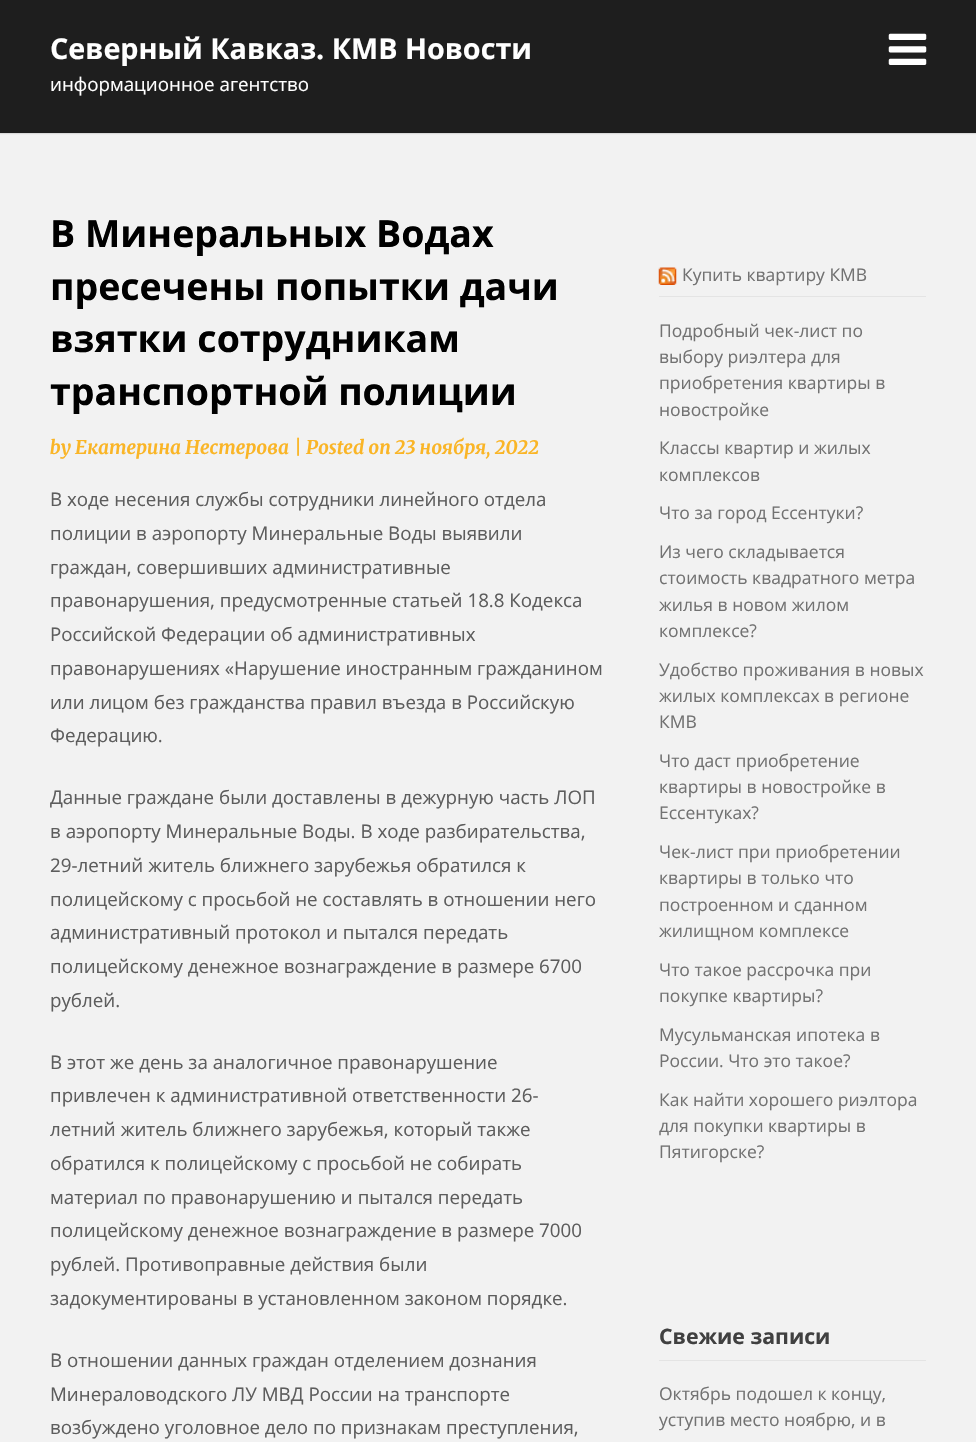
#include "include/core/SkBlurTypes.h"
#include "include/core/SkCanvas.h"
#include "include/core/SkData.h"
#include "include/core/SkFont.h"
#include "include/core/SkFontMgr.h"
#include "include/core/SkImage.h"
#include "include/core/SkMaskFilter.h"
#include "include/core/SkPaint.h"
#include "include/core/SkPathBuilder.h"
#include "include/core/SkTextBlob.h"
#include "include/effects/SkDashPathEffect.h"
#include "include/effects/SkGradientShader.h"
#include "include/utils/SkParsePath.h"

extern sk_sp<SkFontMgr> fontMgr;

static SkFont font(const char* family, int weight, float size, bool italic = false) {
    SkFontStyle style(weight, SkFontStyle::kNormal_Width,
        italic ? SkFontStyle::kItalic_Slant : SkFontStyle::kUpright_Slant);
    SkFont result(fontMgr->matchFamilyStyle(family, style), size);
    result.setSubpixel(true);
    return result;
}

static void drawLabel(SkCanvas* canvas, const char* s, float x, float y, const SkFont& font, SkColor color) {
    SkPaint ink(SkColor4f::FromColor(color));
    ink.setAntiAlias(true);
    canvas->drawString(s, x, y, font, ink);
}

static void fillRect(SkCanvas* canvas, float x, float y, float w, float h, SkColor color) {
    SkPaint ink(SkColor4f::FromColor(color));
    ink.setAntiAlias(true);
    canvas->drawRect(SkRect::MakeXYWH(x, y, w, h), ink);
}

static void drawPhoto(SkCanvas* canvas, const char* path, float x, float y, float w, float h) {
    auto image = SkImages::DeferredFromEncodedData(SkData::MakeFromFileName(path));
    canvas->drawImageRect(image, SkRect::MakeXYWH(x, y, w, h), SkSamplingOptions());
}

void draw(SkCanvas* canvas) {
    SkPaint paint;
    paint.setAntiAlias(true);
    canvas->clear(0xFFF2F2F2);
    paint.setColor(0x1A000000);
    paint.setMaskFilter(SkMaskFilter::MakeBlur(kNormal_SkBlurStyle, 0.5f));
    canvas->drawRect(SkRect::MakeXYWH(0, 1, 976, 133), paint);
    paint.setMaskFilter(nullptr);
    fillRect(canvas, 0, 0, 976, 133, 0xFF1E1E1E);
    SkFont font1 = font("Open Sans", 700, 28.75f);
    drawLabel(canvas, "Северный Кавказ. КМВ Новости", 50, 59, font1, 0xFFFFFFFF);
    SkFont font2 = font("Open Sans", 400, 18.75f);
    drawLabel(canvas, "информационное агентство", 50, 91, font2, 0xFFFFFFFF);
    drawPhoto(canvas, "assets/img1.png", 888, 33, 39, 32);
    SkFont font3 = font("Open Sans", 700, 37.5f);
    drawLabel(canvas, "В Минеральных Водах", 50, 247, font3, 0xFF000000);
    drawLabel(canvas, "пресечены попытки дачи", 50, 300, font3, 0xFF000000);
    drawLabel(canvas, "взятки сотрудникам", 50, 352, font3, 0xFF000000);
    drawLabel(canvas, "транспортной полиции", 50, 405, font3, 0xFF000000);
    SkFont font4 = font("Merriweather", 300, 18.75f, true);
    drawLabel(canvas, "by Екатерина Нестерова", 50, 454, font4, 0xFFFAB526);
    drawLabel(canvas, "| Posted on 23 ноября, 2022", 294, 454, font4, 0xFFFAB526);
    drawLabel(canvas, "В ходе несения службы сотрудники линейного отдела", 50, 506, font2, 0xFF5D5D5D);
    drawLabel(canvas, "полиции в аэропорту Минеральные Воды выявили", 50, 540, font2, 0xFF5D5D5D);
    drawLabel(canvas, "граждан, совершивших административные", 50, 574, font2, 0xFF5D5D5D);
    drawLabel(canvas, "правонарушения, предусмотренные статьей 18.8 Кодекса", 50, 607, font2, 0xFF5D5D5D);
    drawLabel(canvas, "Российской Федерации об административных", 50, 641, font2, 0xFF5D5D5D);
    drawLabel(canvas, "правонарушениях «Нарушение иностранным гражданином", 50, 675, font2, 0xFF5D5D5D);
    drawLabel(canvas, "или лицом без гражданства правил въезда в Российскую", 50, 709, font2, 0xFF5D5D5D);
    drawLabel(canvas, "Федерацию.", 50, 742, font2, 0xFF5D5D5D);
    drawLabel(canvas, "Данные граждане были доставлены в дежурную часть ЛОП", 50, 804, font2, 0xFF5D5D5D);
    drawLabel(canvas, "в аэропорту Минеральные Воды. В ходе разбирательства,", 50, 838, font2, 0xFF5D5D5D);
    drawLabel(canvas, "29-летний житель ближнего зарубежья обратился к", 50, 872, font2, 0xFF5D5D5D);
    drawLabel(canvas, "полицейскому с просьбой не составлять в отношении него", 50, 906, font2, 0xFF5D5D5D);
    drawLabel(canvas, "административный протокол и пытался передать", 50, 939, font2, 0xFF5D5D5D);
    drawLabel(canvas, "полицейскому денежное вознаграждение в размере 6700", 50, 973, font2, 0xFF5D5D5D);
    drawLabel(canvas, "рублей.", 50, 1007, font2, 0xFF5D5D5D);
    drawLabel(canvas, "В этот же день за аналогичное правонарушение", 50, 1069, font2, 0xFF5D5D5D);
    drawLabel(canvas, "привлечен к административной ответственности 26-", 50, 1102, font2, 0xFF5D5D5D);
    drawLabel(canvas, "летний житель ближнего зарубежья, который также", 50, 1136, font2, 0xFF5D5D5D);
    drawLabel(canvas, "обратился к полицейскому с просьбой не собирать", 50, 1170, font2, 0xFF5D5D5D);
    drawLabel(canvas, "материал по правонарушению и пытался передать", 50, 1204, font2, 0xFF5D5D5D);
    drawLabel(canvas, "полицейскому денежное вознаграждение в размере 7000", 50, 1237, font2, 0xFF5D5D5D);
    drawLabel(canvas, "рублей. Противоправные действия были", 50, 1271, font2, 0xFF5D5D5D);
    drawLabel(canvas, "задокументированы в установленном законом порядке.", 50, 1305, font2, 0xFF5D5D5D);
    drawLabel(canvas, "В отношении данных граждан отделением дознания", 50, 1367, font2, 0xFF5D5D5D);
    drawLabel(canvas, "Минераловодского ЛУ МВД России на транспорте", 50, 1401, font2, 0xFF5D5D5D);
    drawLabel(canvas, "возбуждено уголовное дело по признакам преступления,", 50, 1434, font2, 0xFF5D5D5D);
    fillRect(canvas, 659, 296, 267, 1, 0xFFE4E4E4);
    drawPhoto(canvas, "assets/img2.png", 658, 267, 19, 18);
    SkFont font5 = font("Open Sans", 400, 17.5f);
    drawLabel(canvas, "Купить квартиру КМВ", 682, 281, font5, 0xFF727272);
    drawLabel(canvas, "Подробный чек-лист по", 659, 337, font5, 0xFF727272);
    drawLabel(canvas, "выбору риэлтера для", 659, 363, font5, 0xFF727272);
    drawLabel(canvas, "приобретения квартиры в", 659, 389, font5, 0xFF727272);
    drawLabel(canvas, "новостройке", 659, 416, font5, 0xFF727272);
    drawLabel(canvas, "Классы квартир и жилых", 659, 454, font5, 0xFF727272);
    drawLabel(canvas, "комплексов", 659, 481, font5, 0xFF727272);
    drawLabel(canvas, "Что за город Ессентуки?", 659, 519, font5, 0xFF727272);
    drawLabel(canvas, "Из чего складывается", 659, 558, font5, 0xFF727272);
    drawLabel(canvas, "стоимость квадратного метра", 659, 584, font5, 0xFF727272);
    drawLabel(canvas, "жилья в новом жилом", 659, 611, font5, 0xFF727272);
    drawLabel(canvas, "комплексе?", 659, 637, font5, 0xFF727272);
    drawLabel(canvas, "Удобство проживания в новых", 659, 676, font5, 0xFF727272);
    drawLabel(canvas, "жилых комплексах в регионе", 659, 702, font5, 0xFF727272);
    drawLabel(canvas, "КМВ", 659, 728, font5, 0xFF727272);
    drawLabel(canvas, "Что даст приобретение", 659, 767, font5, 0xFF727272);
    drawLabel(canvas, "квартиры в новостройке в", 659, 793, font5, 0xFF727272);
    drawLabel(canvas, "Ессентуках?", 659, 819, font5, 0xFF727272);
    drawLabel(canvas, "Чек-лист при приобретении", 659, 858, font5, 0xFF727272);
    drawLabel(canvas, "квартиры в только что", 659, 884, font5, 0xFF727272);
    drawLabel(canvas, "построенном и сданном", 659, 911, font5, 0xFF727272);
    drawLabel(canvas, "жилищном комплексе", 659, 937, font5, 0xFF727272);
    drawLabel(canvas, "Что такое рассрочка при", 659, 976, font5, 0xFF727272);
    drawLabel(canvas, "покупке квартиры?", 659, 1002, font5, 0xFF727272);
    drawLabel(canvas, "Мусульманская ипотека в", 659, 1041, font5, 0xFF727272);
    drawLabel(canvas, "России. Что это такое?", 659, 1067, font5, 0xFF727272);
    drawLabel(canvas, "Как найти хорошего риэлтора", 659, 1106, font5, 0xFF727272);
    drawLabel(canvas, "для покупки квартиры в", 659, 1132, font5, 0xFF727272);
    drawLabel(canvas, "Пятигорске?", 659, 1158, font5, 0xFF727272);
    fillRect(canvas, 659, 1360, 267, 1, 0xFFE4E4E4);
    SkFont font6 = font("Open Sans", 700, 21.25f);
    drawLabel(canvas, "Свежие записи", 659, 1344, font6, 0xFF404040);
    drawLabel(canvas, "Октябрь подошел к концу,", 659, 1400, font5, 0xFF727272);
    drawLabel(canvas, "уступив место ноябрю, и в", 659, 1426, font5, 0xFF727272);
}
